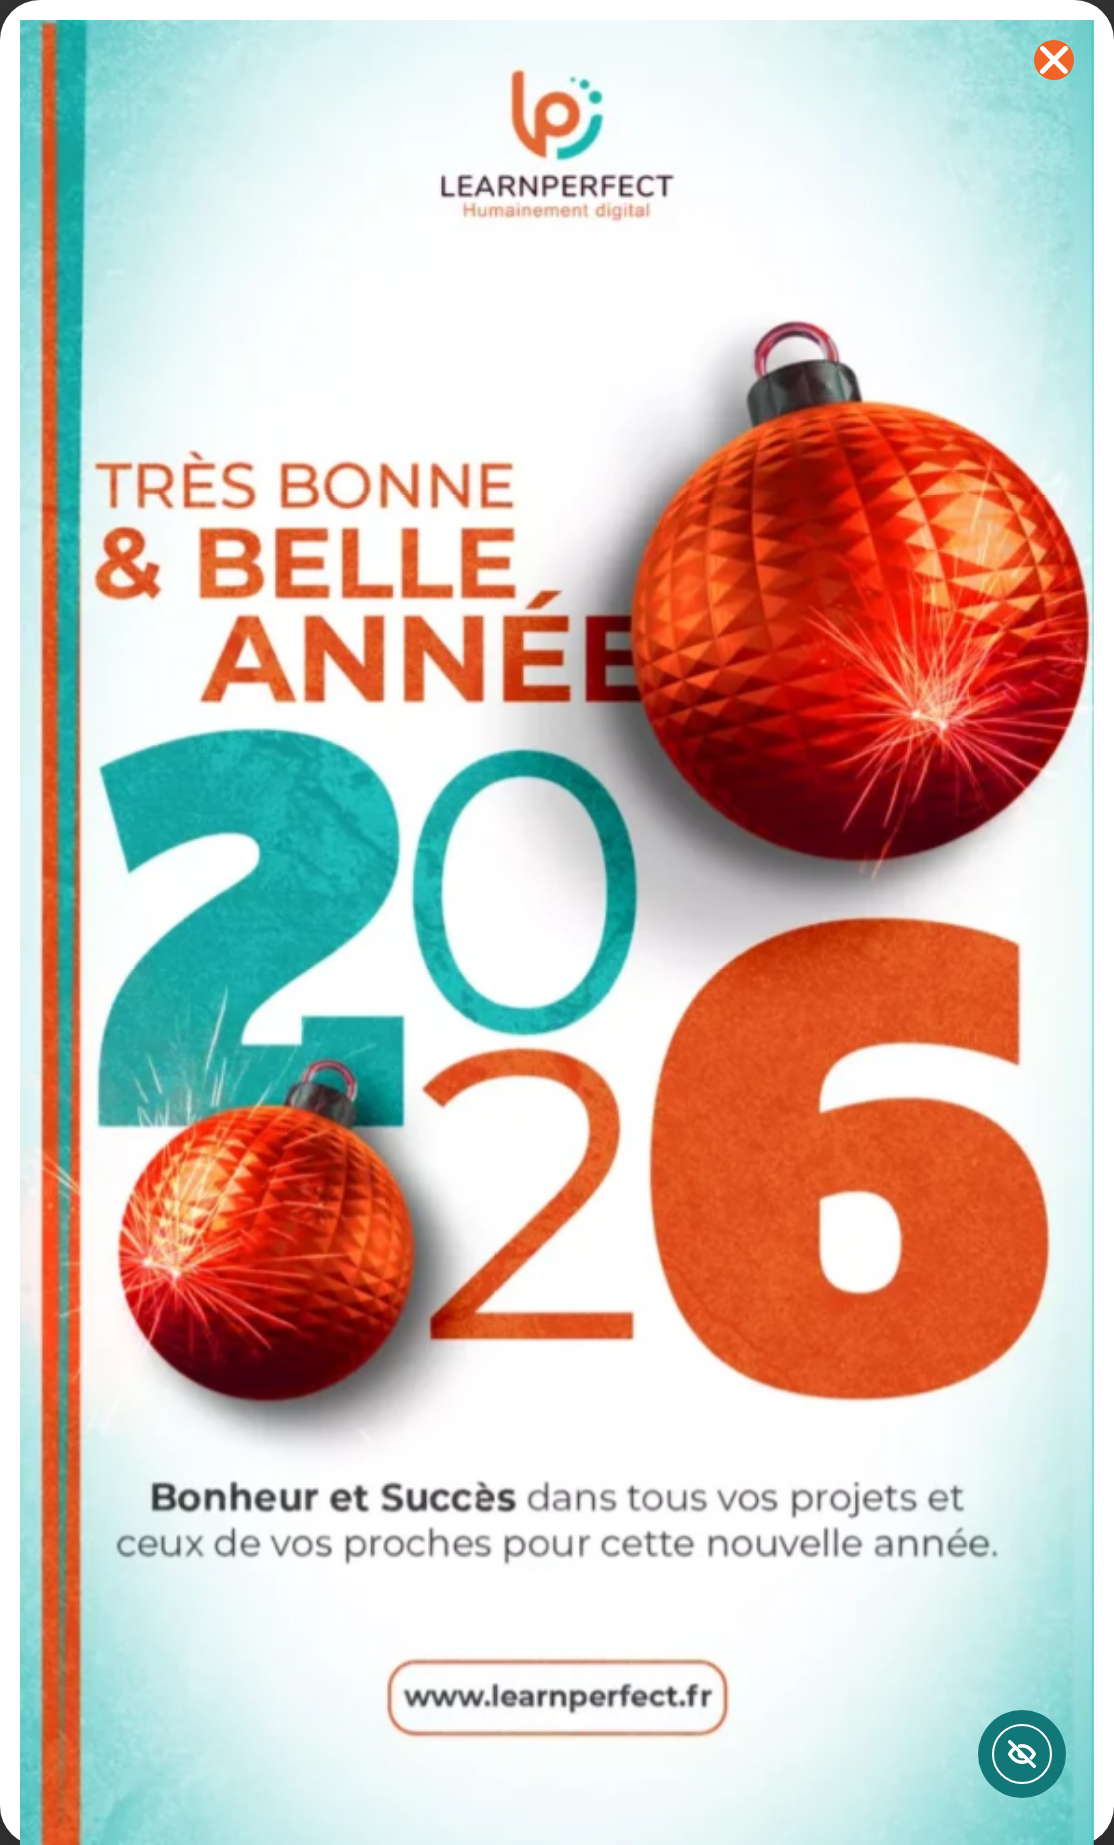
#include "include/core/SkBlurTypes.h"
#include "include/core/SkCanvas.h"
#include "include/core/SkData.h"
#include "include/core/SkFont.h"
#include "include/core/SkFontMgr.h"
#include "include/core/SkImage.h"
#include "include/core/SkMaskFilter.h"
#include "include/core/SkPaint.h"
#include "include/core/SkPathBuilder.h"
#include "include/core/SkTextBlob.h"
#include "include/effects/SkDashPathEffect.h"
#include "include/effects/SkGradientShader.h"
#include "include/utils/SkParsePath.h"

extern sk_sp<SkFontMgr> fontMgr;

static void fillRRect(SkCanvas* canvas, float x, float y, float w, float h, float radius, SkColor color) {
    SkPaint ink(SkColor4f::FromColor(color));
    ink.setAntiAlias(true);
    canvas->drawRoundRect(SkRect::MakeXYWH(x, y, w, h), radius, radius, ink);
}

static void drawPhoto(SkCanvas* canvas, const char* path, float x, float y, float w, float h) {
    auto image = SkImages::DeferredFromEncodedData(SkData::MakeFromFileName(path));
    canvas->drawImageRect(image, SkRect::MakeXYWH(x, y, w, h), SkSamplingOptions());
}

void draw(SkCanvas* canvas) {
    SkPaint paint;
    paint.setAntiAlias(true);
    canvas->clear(0xFF333333);
    paint.setColor(0x33000000);
    paint.setMaskFilter(SkMaskFilter::MakeBlur(kNormal_SkBlurStyle, 23));
    canvas->drawRoundRect(SkRect::MakeXYWH(-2, 10, 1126, 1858), 46, 46, paint);
    paint.setMaskFilter(nullptr);
    fillRRect(canvas, 0, 0, 1114, 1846, 40, 0xFFFFFFFF);
    drawPhoto(canvas, "assets/img1.png", 20, 20, 1074, 1825);
    paint.setColor(0xFFF26426);
    canvas->drawCircle(1054, 60, 20, paint);
    drawPhoto(canvas, "assets/img2.png", 1039, 45, 30, 29);
    paint.setColor(0xFF117877);
    canvas->drawCircle(1022, 1754, 44, paint);
    paint.setStroke(true);
    paint.setStrokeWidth(2);
    paint.setColor(0xFFFFFFFF);
    canvas->drawCircle(1022, 1754, 29, paint);
    drawPhoto(canvas, "assets/img3.png", 1008, 1740, 28, 28);
}
